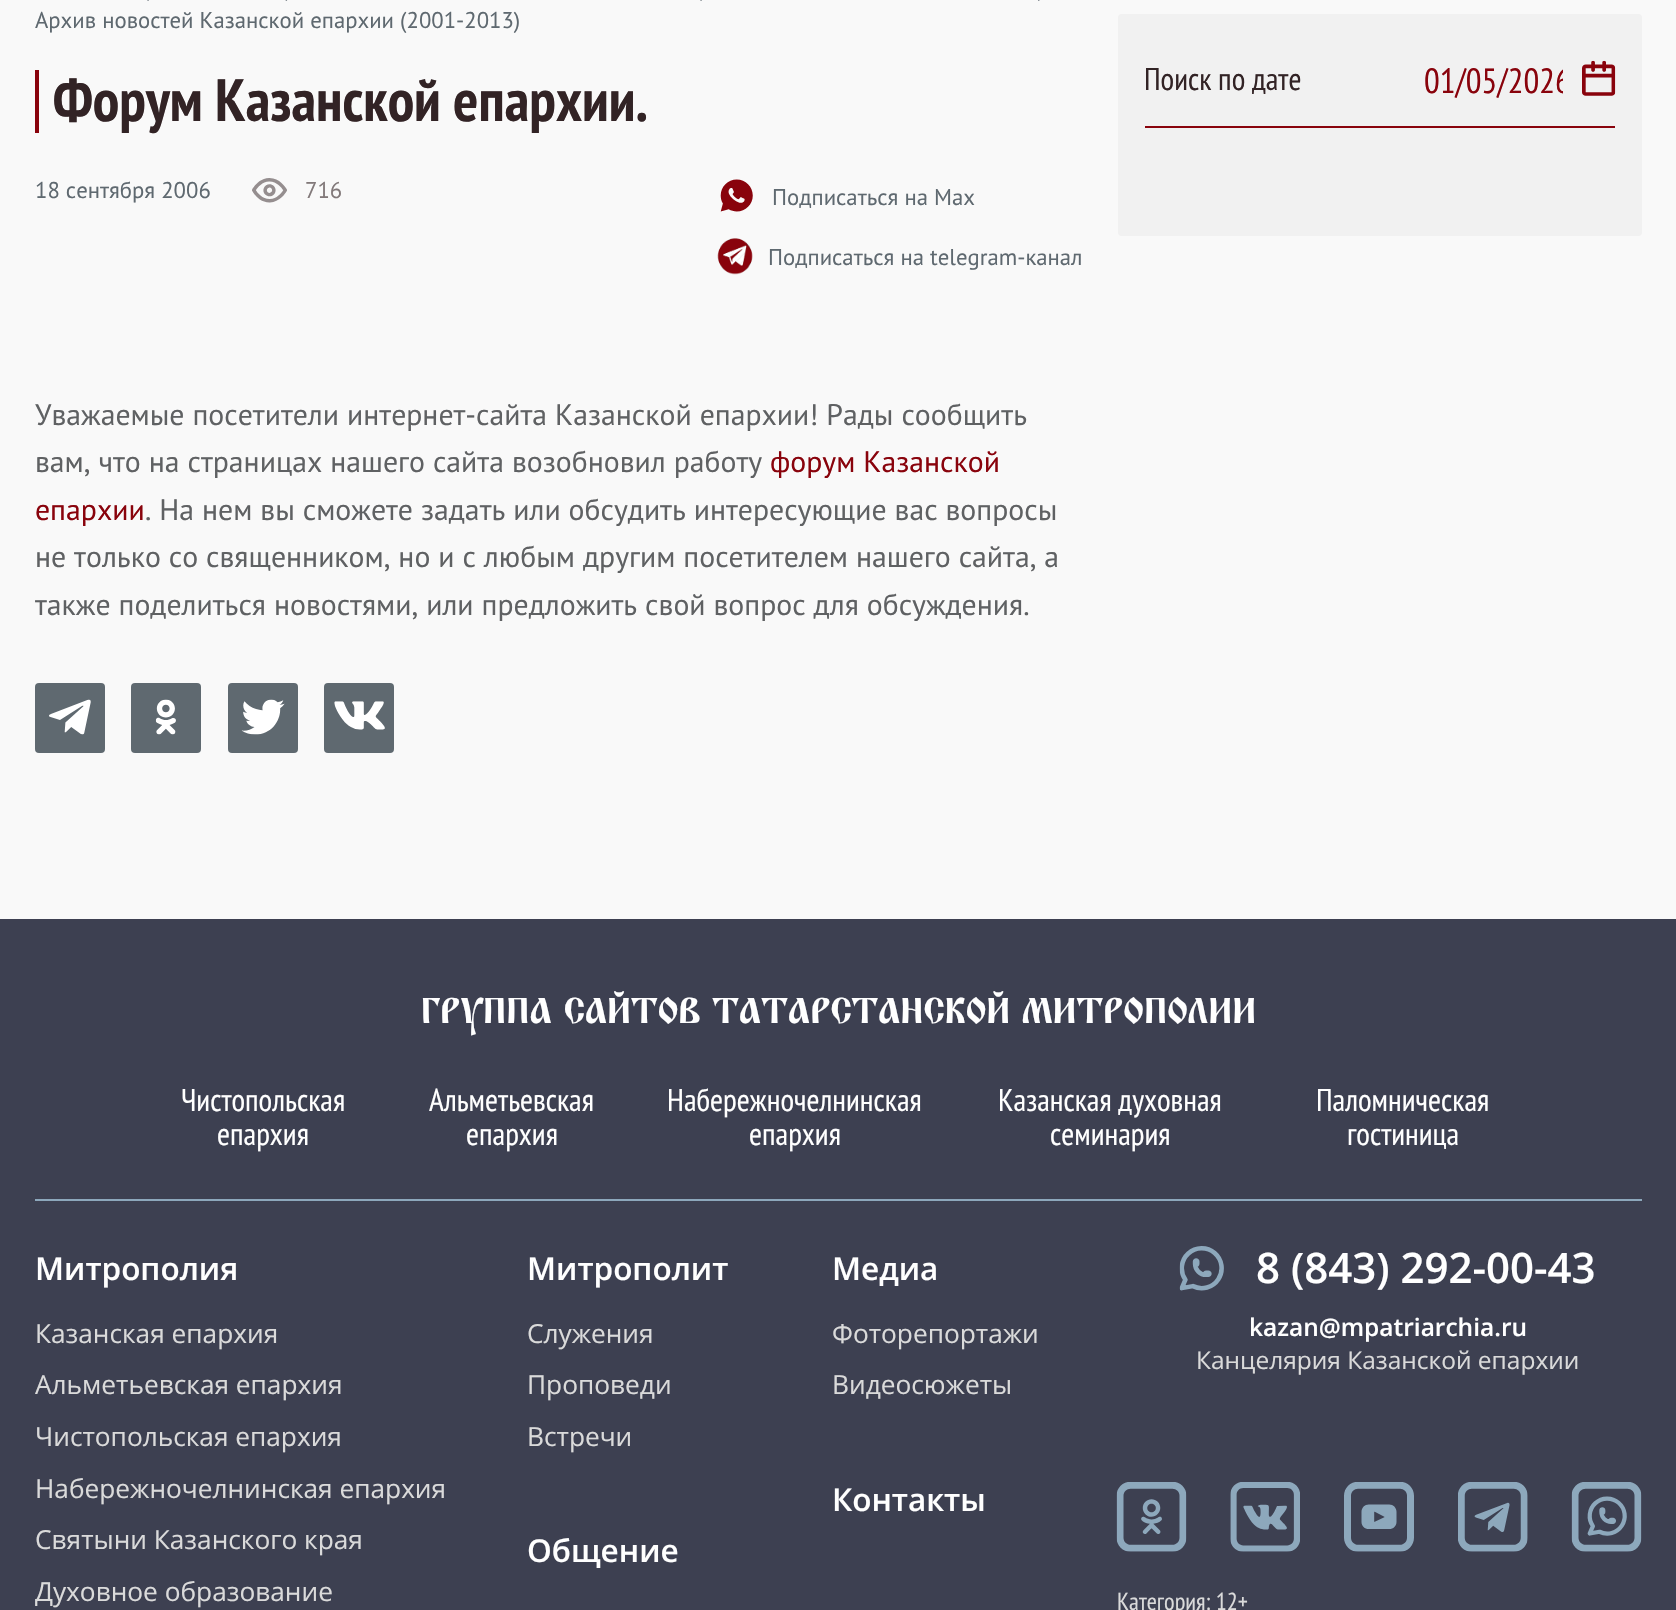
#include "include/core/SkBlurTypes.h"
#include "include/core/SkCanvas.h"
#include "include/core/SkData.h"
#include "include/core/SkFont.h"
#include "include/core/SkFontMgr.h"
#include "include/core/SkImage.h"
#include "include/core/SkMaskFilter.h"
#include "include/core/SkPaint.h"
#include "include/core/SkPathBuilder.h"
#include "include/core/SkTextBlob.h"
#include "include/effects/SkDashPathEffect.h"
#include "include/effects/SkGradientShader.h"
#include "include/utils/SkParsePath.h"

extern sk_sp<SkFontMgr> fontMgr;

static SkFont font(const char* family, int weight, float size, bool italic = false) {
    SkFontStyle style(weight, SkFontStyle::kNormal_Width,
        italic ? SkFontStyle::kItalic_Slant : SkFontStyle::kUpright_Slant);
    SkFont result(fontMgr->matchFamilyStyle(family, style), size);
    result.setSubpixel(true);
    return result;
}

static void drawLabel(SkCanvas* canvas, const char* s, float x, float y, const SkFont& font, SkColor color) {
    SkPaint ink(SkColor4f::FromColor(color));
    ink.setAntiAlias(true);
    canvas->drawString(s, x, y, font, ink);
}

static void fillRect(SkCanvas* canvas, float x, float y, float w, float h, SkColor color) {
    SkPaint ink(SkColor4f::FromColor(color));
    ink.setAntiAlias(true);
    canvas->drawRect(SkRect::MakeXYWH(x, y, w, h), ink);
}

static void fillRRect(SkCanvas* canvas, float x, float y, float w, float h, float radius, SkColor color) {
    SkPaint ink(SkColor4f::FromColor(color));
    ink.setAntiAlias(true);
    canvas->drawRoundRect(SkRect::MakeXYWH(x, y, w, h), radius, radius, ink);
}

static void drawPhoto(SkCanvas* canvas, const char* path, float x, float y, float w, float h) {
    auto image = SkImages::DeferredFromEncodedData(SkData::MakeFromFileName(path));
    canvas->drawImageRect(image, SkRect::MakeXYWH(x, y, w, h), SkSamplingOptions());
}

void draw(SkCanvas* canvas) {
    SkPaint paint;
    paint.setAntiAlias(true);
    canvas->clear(0xFFF9F9F9);
    drawPhoto(canvas, "assets/img1.png", 147, 0, 2, 1);
    drawPhoto(canvas, "assets/img2.png", 285, 0, 3, 1);
    drawPhoto(canvas, "assets/img1.png", 700, 0, 2, 1);
    drawPhoto(canvas, "assets/img3.png", 1038, 0, 2, 1);
    SkFont font1 = font("PT Sans", 400, 22.75f);
    drawLabel(canvas, "Архив новостей Казанской епархии (2001-2013)", 35, 28, font1, 0xFF5F6970);
    fillRect(canvas, 35, 70, 4, 63, 0xFF89030C);
    SkFont font2 = font("PT Sans Narrow", 700, 59.5f);
    drawLabel(canvas, "Форум Казанской епархии.", 53, 121, font2, 0xFF322325);
    drawLabel(canvas, "18 сентября 2006", 35, 198, font1, 0xFF5F6970);
    drawPhoto(canvas, "assets/img4.png", 252, 178, 35, 25);
    drawLabel(canvas, "716", 305, 198, font1, 0xFF82797A);
    drawPhoto(canvas, "assets/img5.png", 720, 179, 33, 33);
    drawLabel(canvas, "Подписаться на Max", 772, 205, font1, 0xFF5F6970);
    drawPhoto(canvas, "assets/img6.png", 717, 238, 36, 37);
    drawLabel(canvas, "Подписаться на telegram-канал", 768, 265, font1, 0xFF5F6970);
    SkFont font3 = font("PT Sans", 400, 29.75f);
    drawLabel(canvas, "Уважаемые посетители интернет-сайта Казанской епархии! Рады сообщить", 35, 425, font3, 0xFF5F6163);
    drawLabel(canvas, "вам, что на страницах нашего сайта возобновил работу", 35, 472, font3, 0xFF5F6163);
    drawLabel(canvas, "форум Казанской", 770, 472, font3, 0xFF89030C);
    drawLabel(canvas, "епархии", 35, 520, font3, 0xFF89030C);
    drawLabel(canvas, ". На нем вы сможете задать или обсудить интересующие вас вопросы", 145, 520, font3, 0xFF5F6163);
    drawLabel(canvas, "не только со священником, но и с любым другим посетителем нашего сайта, а", 35, 567, font3, 0xFF5F6163);
    drawLabel(canvas, "также поделиться новостями, или предложить свой вопрос для обсуждения.", 35, 615, font3, 0xFF5F6163);
    fillRRect(canvas, 35, 683, 70, 70, 4, 0xFF5F6970);
    drawPhoto(canvas, "assets/img7.png", 49, 699, 42, 36);
    fillRRect(canvas, 131, 683, 70, 70, 4, 0xFF5F6970);
    drawPhoto(canvas, "assets/img8.png", 155, 699, 21, 36);
    fillRRect(canvas, 228, 683, 70, 70, 4, 0xFF5F6970);
    drawPhoto(canvas, "assets/img9.png", 241, 699, 44, 36);
    fillRRect(canvas, 324, 683, 70, 70, 4, 0xFF5F6970);
    drawPhoto(canvas, "assets/img10.png", 334, 701, 51, 29);
    fillRRect(canvas, 1118, 14, 524, 222, 4, 0xFFF1F1F1);
    fillRect(canvas, 1145, 126, 470, 2, 0xFF89030C);
    SkFont font4 = font("PT Sans Narrow", 400, 31.5f);
    drawLabel(canvas, "Поиск по дате", 1144, 90, font4, 0xFF322325);
    SkFont font5 = font("PT Sans Narrow", 400, 35);
    drawLabel(canvas, "01/05/2026", 1424, 93, font5, 0xFF89030C);
    drawPhoto(canvas, "assets/img11.png", 1582, 60, 34, 36);
    fillRect(canvas, 1563, 68, 7, 26, 0xFFF1F1F1);
    fillRect(canvas, 0, 919, 1676, 691, 0xFF3D4051);
    SkFont font6 = font("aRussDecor", 400, 36.75f);
    drawLabel(canvas, "ГРУППА САЙТОВ ТАТАРСТАНСКОЙ МИТРОПОЛИИ", 421, 1023, font6, 0xFFFFFFFF);
    drawLabel(canvas, "Чистопольская", 181, 1111, font4, 0xFFFFFFFF);
    drawLabel(canvas, "епархия", 217, 1145, font4, 0xFFFFFFFF);
    drawLabel(canvas, "Альметьевская", 429, 1111, font4, 0xFFFFFFFF);
    drawLabel(canvas, "епархия", 466, 1145, font4, 0xFFFFFFFF);
    drawLabel(canvas, "Набережночелнинская", 667, 1111, font4, 0xFFFFFFFF);
    drawLabel(canvas, "епархия", 749, 1145, font4, 0xFFFFFFFF);
    drawLabel(canvas, "Казанская духовная", 998, 1111, font4, 0xFFFFFFFF);
    drawLabel(canvas, "семинария", 1050, 1145, font4, 0xFFFFFFFF);
    drawLabel(canvas, "Паломническая", 1316, 1111, font4, 0xFFFFFFFF);
    drawLabel(canvas, "гостиница", 1347, 1145, font4, 0xFFFFFFFF);
    fillRect(canvas, 35, 1199, 1607, 2, 0xFF8DA8BC);
    SkFont font7 = font("Open Sans", 600, 31.5f);
    drawLabel(canvas, "Митрополия", 35, 1280, font7, 0xFFFFFFFF);
    SkFont font8 = font("Open Sans", 400, 26.25f);
    drawLabel(canvas, "Казанская епархия", 35, 1343, font8, 0xFFDADADA);
    drawLabel(canvas, "Альметьевская епархия", 35, 1394, font8, 0xFFDADADA);
    drawLabel(canvas, "Чистопольская епархия", 35, 1446, font8, 0xFFDADADA);
    drawLabel(canvas, "Набережночелнинская епархия", 35, 1498, font8, 0xFFDADADA);
    drawLabel(canvas, "Святыни Казанского края", 35, 1549, font8, 0xFFDADADA);
    drawLabel(canvas, "Духовное образование", 35, 1601, font8, 0xFFDADADA);
    drawLabel(canvas, "Митрополит", 527, 1280, font7, 0xFFFFFFFF);
    drawLabel(canvas, "Служения", 527, 1343, font8, 0xFFDADADA);
    drawLabel(canvas, "Проповеди", 527, 1394, font8, 0xFFDADADA);
    drawLabel(canvas, "Встречи", 527, 1446, font8, 0xFFDADADA);
    drawLabel(canvas, "Общение", 527, 1562, font7, 0xFFFFFFFF);
    drawLabel(canvas, "Медиа", 832, 1280, font7, 0xFFFFFFFF);
    drawLabel(canvas, "Фоторепортажи", 832, 1343, font8, 0xFFDADADA);
    drawLabel(canvas, "Видеосюжеты", 832, 1394, font8, 0xFFDADADA);
    drawLabel(canvas, "Контакты", 832, 1511, font7, 0xFFFFFFFF);
    drawPhoto(canvas, "assets/img12.png", 1179, 1246, 45, 45);
    SkFont font9 = font("Open Sans", 600, 42);
    drawLabel(canvas, "8 (843) 292-00-43", 1256, 1283, font9, 0xFFFFFFFF);
    SkFont font10 = font("Open Sans", 600, 24.5f);
    drawLabel(canvas, "kazan@mpatriarchia.ru", 1249, 1336, font10, 0xFFFFFFFF);
    SkFont font11 = font("Open Sans", 400, 24.5f);
    drawLabel(canvas, "Канцелярия Казанской епархии", 1196, 1369, font11, 0xFFDADADA);
    drawPhoto(canvas, "assets/img13.png", 1116, 1482, 71, 70);
    drawPhoto(canvas, "assets/img14.png", 1230, 1482, 70, 70);
    drawPhoto(canvas, "assets/img15.png", 1344, 1482, 70, 70);
    drawPhoto(canvas, "assets/img16.png", 1458, 1482, 70, 70);
    drawPhoto(canvas, "assets/img17.png", 1571, 1482, 71, 70);
    SkFont font12 = font("PT Sans Narrow", 400, 24.5f);
    drawLabel(canvas, "Категория: 12+", 1117, 1610, font12, 0xFFDADADA);
}
